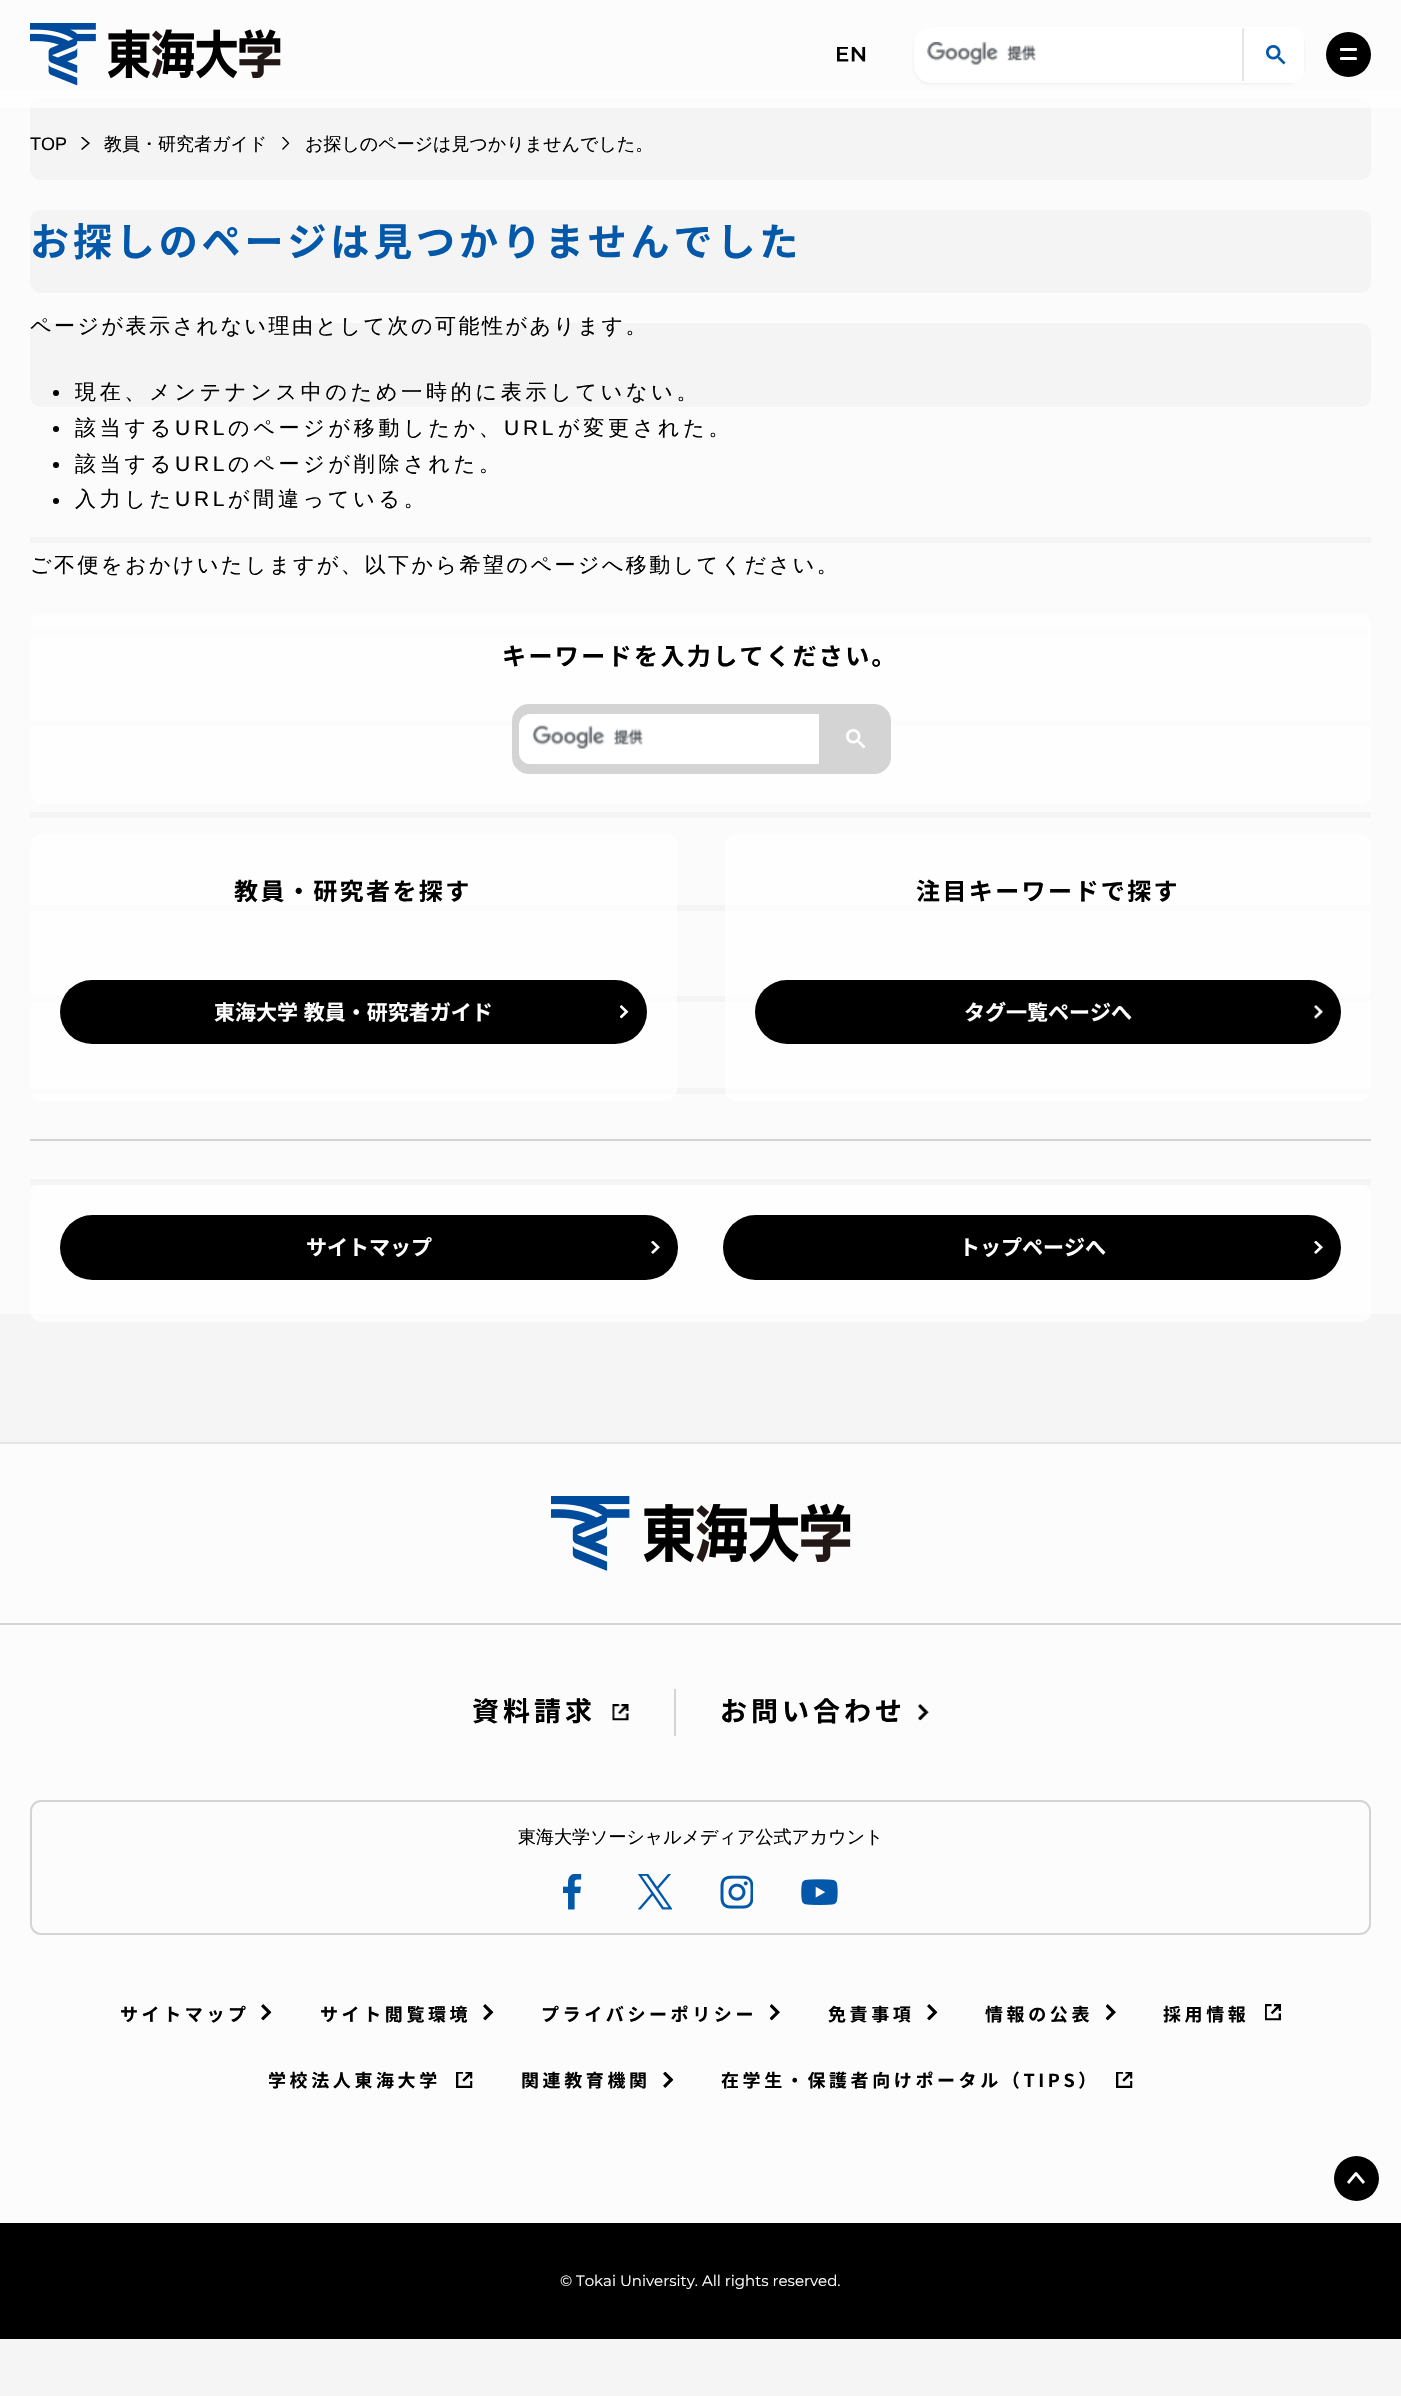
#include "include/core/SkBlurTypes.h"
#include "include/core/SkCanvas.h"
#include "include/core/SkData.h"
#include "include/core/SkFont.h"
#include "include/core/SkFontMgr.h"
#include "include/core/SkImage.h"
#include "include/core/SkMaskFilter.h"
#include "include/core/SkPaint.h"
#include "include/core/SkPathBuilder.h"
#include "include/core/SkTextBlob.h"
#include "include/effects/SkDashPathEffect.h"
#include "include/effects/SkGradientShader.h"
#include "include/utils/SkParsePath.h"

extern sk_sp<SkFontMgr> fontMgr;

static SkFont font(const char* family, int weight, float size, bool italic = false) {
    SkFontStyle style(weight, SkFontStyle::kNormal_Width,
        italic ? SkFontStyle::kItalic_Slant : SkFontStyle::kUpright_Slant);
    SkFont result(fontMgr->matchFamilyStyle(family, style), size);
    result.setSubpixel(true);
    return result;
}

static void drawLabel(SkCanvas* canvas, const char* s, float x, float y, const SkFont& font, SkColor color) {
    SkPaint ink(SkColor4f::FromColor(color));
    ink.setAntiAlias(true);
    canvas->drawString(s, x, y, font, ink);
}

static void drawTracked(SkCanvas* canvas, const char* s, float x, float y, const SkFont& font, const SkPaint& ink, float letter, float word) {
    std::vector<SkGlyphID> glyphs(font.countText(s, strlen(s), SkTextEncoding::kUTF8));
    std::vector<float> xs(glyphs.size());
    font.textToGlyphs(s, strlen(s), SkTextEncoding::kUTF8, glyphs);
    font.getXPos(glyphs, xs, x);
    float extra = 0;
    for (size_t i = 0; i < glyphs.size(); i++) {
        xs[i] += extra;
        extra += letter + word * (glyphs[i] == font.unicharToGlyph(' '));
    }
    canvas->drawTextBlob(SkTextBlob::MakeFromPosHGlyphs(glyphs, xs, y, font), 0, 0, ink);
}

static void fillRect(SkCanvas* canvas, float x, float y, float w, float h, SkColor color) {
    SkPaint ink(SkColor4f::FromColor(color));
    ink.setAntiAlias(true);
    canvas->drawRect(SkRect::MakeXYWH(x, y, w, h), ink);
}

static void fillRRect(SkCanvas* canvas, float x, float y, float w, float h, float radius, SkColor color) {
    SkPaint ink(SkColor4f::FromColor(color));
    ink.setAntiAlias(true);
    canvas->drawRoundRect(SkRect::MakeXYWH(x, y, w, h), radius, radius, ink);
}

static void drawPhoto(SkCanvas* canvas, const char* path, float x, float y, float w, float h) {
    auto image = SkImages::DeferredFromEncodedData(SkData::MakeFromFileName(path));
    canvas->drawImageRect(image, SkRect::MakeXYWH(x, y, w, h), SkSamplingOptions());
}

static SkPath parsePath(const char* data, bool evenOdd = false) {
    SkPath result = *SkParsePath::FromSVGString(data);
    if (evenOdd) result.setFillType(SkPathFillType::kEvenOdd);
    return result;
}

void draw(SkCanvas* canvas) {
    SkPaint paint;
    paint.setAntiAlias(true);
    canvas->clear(0xFFFBFBFB);
    fillRect(canvas, 0, 0, 1401, 90, 0xFFF4F4F4);
    fillRRect(canvas, 30, 98, 1341, 82, 11, 0xFFF4F4F4);
    fillRRect(canvas, 30, 210, 1341, 83, 11, 0xFFF4F4F4);
    fillRRect(canvas, 30, 323, 1341, 84, 11, 0xFFF4F4F4);
    fillRect(canvas, 30, 537, 1341, 6, 0xFFF4F4F4);
    fillRect(canvas, 30, 629, 1341, 6, 0xFFF4F4F4);
    fillRect(canvas, 30, 720, 1341, 6, 0xFFF4F4F4);
    fillRect(canvas, 30, 812, 1341, 6, 0xFFF4F4F4);
    fillRect(canvas, 30, 905, 1341, 6, 0xFFF4F4F4);
    fillRect(canvas, 30, 996, 1341, 6, 0xFFF4F4F4);
    fillRect(canvas, 30, 1088, 1341, 6, 0xFFF4F4F4);
    fillRect(canvas, 30, 1179, 1341, 6, 0xFFF4F4F4);
    fillRect(canvas, 0, 1314, 1401, 1082, 0xFFF5F5F5);
    fillRect(canvas, 0, 0, 1401, 108, 0xB3FFFFFF);
    drawPhoto(canvas, "assets/img1.png", 30, 23, 251, 63);
    drawPhoto(canvas, "assets/img2.png", 837, 47, 29, 15);
    paint.setColor(0x29959595);
    paint.setMaskFilter(SkMaskFilter::MakeBlur(kNormal_SkBlurStyle, 1.5f));
    canvas->drawRoundRect(SkRect::MakeXYWH(914, 29, 390, 55), 17, 17, paint);
    paint.setMaskFilter(nullptr);
    fillRRect(canvas, 914, 27, 390, 56, 17, 0xFFFFFFFF);
    paint.setColor(0xFFFFFFFF);
    canvas->drawPath(parsePath("M925 30H1239V78H925C919 78 914 73 914 67V41C914 35 919 30 925 30Z"), paint);
    drawPhoto(canvas, "assets/img3.png", 927, 42, 109, 23);
    canvas->drawPath(parsePath("M1245 27H1293C1299 27 1304 32 1304 38V72C1304 78 1299 83 1293 83H1245C1243.5 83 1242 81.5 1242 80V30C1242 28.5 1243.5 27 1245 27Z"), paint);
    paint.setStroke(true);
    paint.setStrokeWidth(1.5f);
    paint.setColor(0xFFDDDDDD);
    canvas->drawPath(parsePath("M1243.5 81L1243 79.5V30L1243.5 28.5"), paint);
    drawPhoto(canvas, "assets/img4.png", 1266, 45, 20, 20);
    paint.setStroke(false);
    paint.setColor(0xFF000000);
    canvas->drawCircle(1348.5f, 54.5f, 22.5f, paint);
    canvas->save();
    canvas->clipRect(SkRect::MakeXYWH(1340, 48, 18, 12));
    paint.setStroke(true);
    paint.setStrokeWidth(3.2f);
    paint.setStrokeCap(SkPaint::kRound_Cap);
    paint.setColor(0xFFFFFFFF);
    canvas->drawPath(parsePath("M1341.5 49.5H1355.5M1341.5 58.5H1355.5"), paint);
    canvas->restore();
    SkFont font1 = font("Liberation Sans", 400, 18);
    drawLabel(canvas, "TOP", 30, 150, font1, 0xFF000000);
    drawPhoto(canvas, "assets/img5.png", 81, 137, 9, 13);
    SkFont font2 = font("WenQuanYi Zen Hei", 500, 18);
    drawLabel(canvas, "教員・研究者ガイド", 104, 150, font2, 0xFF000000);
    drawPhoto(canvas, "assets/img6.png", 282, 137, 8, 13);
    drawLabel(canvas, "お探しのページは見つかりませんでした。", 305, 150, font2, 0xFF000000);
    SkFont font3 = font("Noto Sans JP", 700, 39);
    paint.setStroke(false);
    paint.setColor(0xFF0358A9);
    drawTracked(canvas, "お探しのページは見つかりませんでした", 30, 256, font3, paint, 3.9f, 0);
    SkFont font4 = font("WenQuanYi Zen Hei", 500, 21);
    paint.setColor(0xFF000000);
    drawTracked(canvas, "ページが表示されない理由として次の可能性があります。", 30, 333, font4, paint, 2.5f, 0);
    canvas->drawCircle(56, 393, 3, paint);
    drawTracked(canvas, "現在、メンテナンス中のため一時的に表示していない。", 75, 399, font4, paint, 3.75f, 0);
    canvas->drawCircle(56, 429, 3, paint);
    drawTracked(canvas, "該当する", 75, 435, font4, paint, 3.75f, 0);
    SkFont font5 = font("Liberation Sans", 400, 21);
    drawTracked(canvas, "URL", 175, 435, font5, paint, 3.75f, 0);
    drawTracked(canvas, "のページが移動したか、", 228, 435, font4, paint, 3.75f, 0);
    drawTracked(canvas, "URL", 504, 435, font5, paint, 3.75f, 0);
    drawTracked(canvas, "が変更された。", 558, 435, font4, paint, 3.75f, 0);
    canvas->drawCircle(56, 465, 3, paint);
    drawTracked(canvas, "該当する", 75, 471, font4, paint, 3.75f, 0);
    drawTracked(canvas, "URL", 175, 471, font5, paint, 3.75f, 0);
    drawTracked(canvas, "のページが削除された。", 228, 471, font4, paint, 3.75f, 0);
    canvas->drawCircle(56, 501, 3, paint);
    drawTracked(canvas, "入力した", 75, 506, font4, paint, 3.75f, 0);
    drawTracked(canvas, "URL", 175, 506, font5, paint, 3.75f, 0);
    drawTracked(canvas, "が間違っている。", 228, 506, font4, paint, 3.75f, 0);
    drawTracked(canvas, "ご不便をおかけいたしますが、以下から希望のページへ移動してください。", 30, 572, font4, paint, 2.5f, 0);
    fillRRect(canvas, 30, 614, 1341, 190, 11, 0xB3FFFFFF);
    SkFont font6 = font("Noto Sans JP", 700, 24);
    drawTracked(canvas, "キーワードを入力してください。", 502, 665, font6, paint, 2.4f, 0);
    paint.setColor(0xFFD4D4D4);
    canvas->drawRoundRect(SkRect::MakeXYWH(516, 708, 371, 62), 13, 13, paint);
    paint.setStroke(true);
    paint.setStrokeWidth(8);
    paint.setStrokeCap(SkPaint::kButt_Cap);
    canvas->drawRoundRect(SkRect::MakeXYWH(516, 708, 371, 62), 13, 13, paint);
    paint.setStroke(false);
    paint.setColor(0xFFFFFFFF);
    canvas->drawPath(parsePath("M530 714H819V764H530C524 764 519 759 519 753V725C519 719 524 714 530 714Z"), paint);
    drawPhoto(canvas, "assets/img7.png", 532, 725, 111, 24);
    drawPhoto(canvas, "assets/img8.png", 846, 729, 20, 20);
    fillRRect(canvas, 30, 834, 647, 267, 11, 0xB3FFFFFF);
    paint.setColor(0xFF000000);
    drawTracked(canvas, "教員・研究者を探す", 234, 900, font6, paint, 2.4f, 0);
    fillRRect(canvas, 60, 980, 587, 64, 32, 0xFF000000);
    SkFont font7 = font("Noto Sans JP", 700, 21);
    paint.setColor(0xFFFFFFFF);
    drawTracked(canvas, "東海大学 教員・研究者ガイド", 214, 1020, font7, paint, 0, 1);
    drawPhoto(canvas, "assets/img9.png", 620, 1005, 9, 14);
    fillRRect(canvas, 725, 834, 646, 267, 11, 0xB3FFFFFF);
    paint.setColor(0xFF000000);
    drawTracked(canvas, "注目キーワードで探す", 916, 900, font6, paint, 2.4f, 0);
    fillRRect(canvas, 755, 980, 586, 64, 32, 0xFF000000);
    drawLabel(canvas, "タグ一覧ページへ", 964, 1020, font7, 0xFFFFFFFF);
    drawPhoto(canvas, "assets/img10.png", 1314, 1005, 9, 14);
    fillRect(canvas, 30, 1139, 1341, 2, 0xFFD4D4D4);
    fillRRect(canvas, 30, 1185, 1341, 137, 11, 0xB3FFFFFF);
    fillRRect(canvas, 60, 1215, 618, 65, 32.5f, 0xFF000000);
    drawLabel(canvas, "サイトマップ", 306, 1255, font7, 0xFFFFFFFF);
    drawPhoto(canvas, "assets/img11.png", 651, 1241, 9, 13);
    fillRRect(canvas, 723, 1215, 618, 65, 32.5f, 0xFF000000);
    drawLabel(canvas, "トップページへ", 959, 1255, font7, 0xFFFFFFFF);
    drawPhoto(canvas, "assets/img11.png", 1314, 1241, 9, 13);
    fillRect(canvas, 0, 1444, 1401, 779, 0xFFFCFCFC);
    fillRect(canvas, 0, 1442, 1401, 2, 0xFFE6E5E7);
    fillRect(canvas, 0, 1623, 1401, 2, 0xFFD4D4D4);
    drawPhoto(canvas, "assets/img12.png", 551, 1496, 300, 75);
    SkFont font8 = font("Noto Sans JP", 700, 27);
    drawTracked(canvas, "資料請求", 472, 1721, font8, paint, 4, 0);
    drawPhoto(canvas, "assets/img13.png", 612, 1704, 17, 17);
    fillRect(canvas, 674, 1689, 2, 47, 0xFFD4D4D4);
    drawTracked(canvas, "お問い合わせ", 720, 1721, font8, paint, 4, 0);
    drawPhoto(canvas, "assets/img14.png", 918, 1704, 11, 17);
    paint.setStroke(true);
    paint.setStrokeWidth(2);
    paint.setColor(0xFFD4D4D4);
    canvas->drawRoundRect(SkRect::MakeXYWH(31, 1801, 1339, 133), 10, 10, paint);
    drawLabel(canvas, "東海大学ソーシャルメディア公式アカウント", 518, 1843, font2, 0xFF000000);
    drawPhoto(canvas, "assets/img15.png", 563, 1874, 19, 36);
    drawPhoto(canvas, "assets/img16.png", 638, 1874, 34, 36);
    drawPhoto(canvas, "assets/img17.png", 720, 1875, 33, 34);
    drawPhoto(canvas, "assets/img18.png", 801, 1879, 37, 26);
    SkFont font9 = font("Noto Sans JP", 700, 18);
    paint.setStroke(false);
    paint.setColor(0xFF000000);
    drawTracked(canvas, "サイトマップ", 120, 2021, font9, paint, 3.6f, 0);
    drawPhoto(canvas, "assets/img19.png", 261, 2004, 11, 17);
    drawTracked(canvas, "サイト閲覧環境", 320, 2021, font9, paint, 3.6f, 0);
    drawPhoto(canvas, "assets/img19.png", 483, 2004, 11, 17);
    drawTracked(canvas, "プライバシーポリシー", 541, 2021, font9, paint, 3.6f, 0);
    drawPhoto(canvas, "assets/img20.png", 770, 2004, 10, 17);
    drawTracked(canvas, "免責事項", 828, 2021, font9, paint, 3.6f, 0);
    drawPhoto(canvas, "assets/img19.png", 927, 2004, 11, 17);
    drawTracked(canvas, "情報の公表", 985, 2021, font9, paint, 3.6f, 0);
    drawPhoto(canvas, "assets/img20.png", 1106, 2004, 10, 17);
    drawTracked(canvas, "採用情報", 1163, 2021, font9, paint, 3.6f, 0);
    drawPhoto(canvas, "assets/img21.png", 1265, 2004, 16, 17);
    drawTracked(canvas, "学校法人東海大学", 268, 2087, font9, paint, 3.6f, 0);
    drawPhoto(canvas, "assets/img22.png", 456, 2072, 17, 16);
    drawTracked(canvas, "関連教育機関", 521, 2087, font9, paint, 3.6f, 0);
    drawPhoto(canvas, "assets/img23.png", 663, 2072, 11, 16);
    drawTracked(canvas, "在学生・保護者向けポータル（TIPS）", 721, 2087, font9, paint, 3.6f, 0);
    drawPhoto(canvas, "assets/img22.png", 1116, 2072, 17, 16);
    fillRect(canvas, 0, 2223, 1401, 116, 0xFF000000);
    canvas->drawCircle(1356.5f, 2178.5f, 22.5f, paint);
    paint.setStroke(true);
    paint.setStrokeWidth(2.8f);
    paint.setStrokeJoin(SkPaint::kRound_Join);
    paint.setColor(0xFFFFFFFF);
    canvas->drawPath(parsePath("M1348 2183L1356 2173.5L1364 2183"), paint);
    SkFont font10 = font("Montserrat", 400, 15);
    drawLabel(canvas, "© Tokai University. All rights reserved.", 560, 2286, font10, 0xFFFFFFFF);
}
